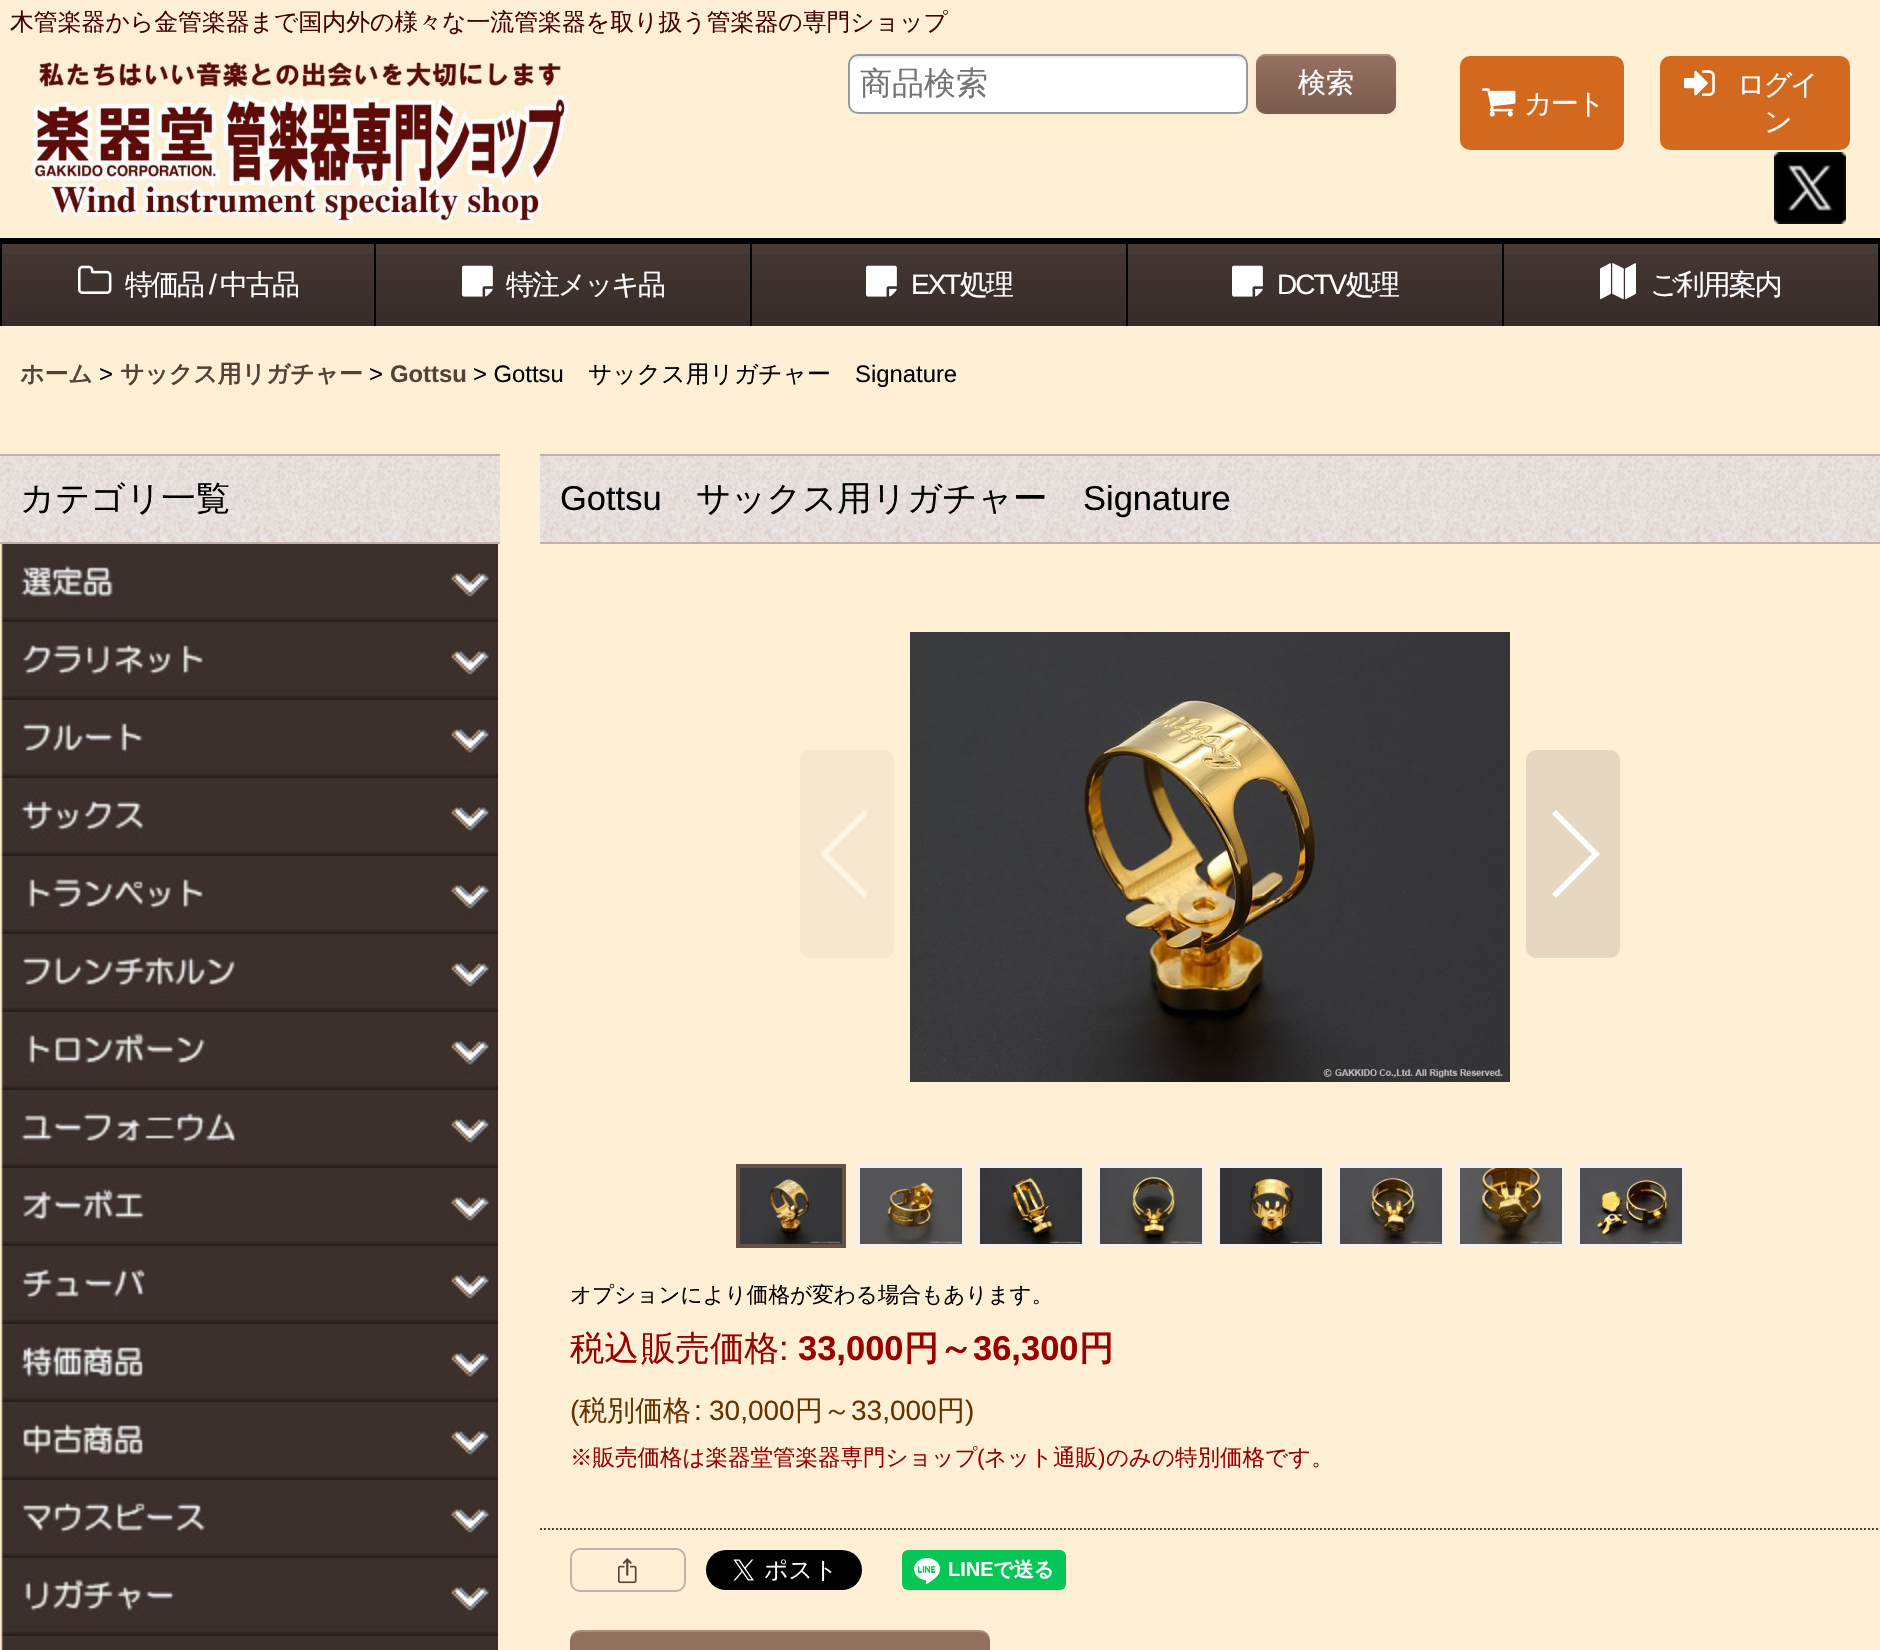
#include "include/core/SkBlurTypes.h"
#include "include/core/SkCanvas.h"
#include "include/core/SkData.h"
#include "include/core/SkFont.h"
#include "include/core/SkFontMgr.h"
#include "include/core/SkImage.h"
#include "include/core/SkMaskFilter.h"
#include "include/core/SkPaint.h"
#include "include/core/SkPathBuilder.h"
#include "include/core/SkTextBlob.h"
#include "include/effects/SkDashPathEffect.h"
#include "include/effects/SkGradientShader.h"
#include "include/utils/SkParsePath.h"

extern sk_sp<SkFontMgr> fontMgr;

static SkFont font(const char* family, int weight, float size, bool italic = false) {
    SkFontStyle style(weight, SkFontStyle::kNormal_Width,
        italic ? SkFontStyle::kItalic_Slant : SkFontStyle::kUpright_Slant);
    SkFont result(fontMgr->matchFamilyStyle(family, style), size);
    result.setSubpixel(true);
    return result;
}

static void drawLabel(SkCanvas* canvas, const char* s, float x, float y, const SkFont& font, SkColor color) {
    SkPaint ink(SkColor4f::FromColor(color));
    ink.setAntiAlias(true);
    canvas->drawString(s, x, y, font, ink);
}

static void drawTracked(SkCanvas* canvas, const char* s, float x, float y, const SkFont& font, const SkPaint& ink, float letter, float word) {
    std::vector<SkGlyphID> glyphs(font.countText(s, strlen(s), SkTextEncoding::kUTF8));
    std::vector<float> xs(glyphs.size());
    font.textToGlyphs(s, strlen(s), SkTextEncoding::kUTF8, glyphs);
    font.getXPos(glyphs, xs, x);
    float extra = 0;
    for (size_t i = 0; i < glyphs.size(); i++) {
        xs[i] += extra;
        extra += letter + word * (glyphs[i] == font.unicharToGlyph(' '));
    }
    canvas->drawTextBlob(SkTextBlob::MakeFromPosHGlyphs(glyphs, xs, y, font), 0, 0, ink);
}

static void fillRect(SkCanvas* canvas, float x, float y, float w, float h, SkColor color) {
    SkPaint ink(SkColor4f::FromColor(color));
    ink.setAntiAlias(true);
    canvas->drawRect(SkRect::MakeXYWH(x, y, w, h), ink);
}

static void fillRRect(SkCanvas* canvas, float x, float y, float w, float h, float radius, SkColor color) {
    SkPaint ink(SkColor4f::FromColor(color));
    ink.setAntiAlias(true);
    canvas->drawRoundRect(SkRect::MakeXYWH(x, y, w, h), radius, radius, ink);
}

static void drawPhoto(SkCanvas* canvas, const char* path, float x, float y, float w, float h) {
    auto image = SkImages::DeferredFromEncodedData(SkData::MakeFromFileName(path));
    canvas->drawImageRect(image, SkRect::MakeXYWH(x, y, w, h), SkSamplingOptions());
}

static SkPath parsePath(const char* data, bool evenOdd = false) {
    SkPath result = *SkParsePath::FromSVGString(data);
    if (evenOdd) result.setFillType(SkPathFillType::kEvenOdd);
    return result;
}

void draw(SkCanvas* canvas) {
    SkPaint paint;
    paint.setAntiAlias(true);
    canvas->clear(0xFFFFEFD5);
    fillRect(canvas, 0, 238, 1880, 6, 0xFF000000);
    SkFont font1 = font("WenQuanYi Zen Hei", 500, 23.85f);
    drawLabel(canvas, "木管楽器から金管楽器まで国内外の様々な一流管楽器を取り扱う管楽器の専門ショップ", 10, 30, font1, 0xFF440202);
    fillRRect(canvas, 848, 54, 400, 60, 10, 0xFFFFFFFF);
    paint.setColor(0xFFECECEC);
    canvas->drawPath(parsePath("M858 58H1238C1242 58 1246 62 1246 66V64C1246 60 1242 56 1238 56H858C854 56 850 60 850 64V66C850 62 854 58 858 58Z"), paint);
    paint.setStroke(true);
    paint.setStrokeWidth(2);
    paint.setColor(0xFF999999);
    canvas->drawRoundRect(SkRect::MakeXYWH(849, 55, 398, 58), 9, 9, paint);
    SkFont font2 = font("WenQuanYi Zen Hei", 500, 32);
    drawLabel(canvas, "商品検索", 860, 94, font2, 0xFF757575);
    paint.setStroke(false);
    paint.setColor(0x0D000000);
    paint.setMaskFilter(SkMaskFilter::MakeBlur(kNormal_SkBlurStyle, 2));
    canvas->drawRoundRect(SkRect::MakeXYWH(1256, 56, 140, 60), 10, 10, paint);
    paint.setMaskFilter(nullptr);
    fillRRect(canvas, 1256, 54, 140, 60, 10, 0xFF94705F);
    drawPhoto(canvas, "assets/img1.png", 1256, 54, 140, 60);
    paint.setColor(0x33FFFFFF);
    canvas->drawPath(parsePath("M1266 56H1386C1392 56 1396 60 1396 66C1396 49 1378 54 1366 54H1286C1274 54 1256 49 1256 66C1256 60 1260 56 1266 56Z"), paint);
    SkFont font3 = font("WenQuanYi Zen Hei", 500, 28);
    drawLabel(canvas, "検索", 1298, 92, font3, 0xFFFFFFFF);
    drawPhoto(canvas, "assets/img2.png", 30, 57, 539, 169);
    drawPhoto(canvas, "assets/img3.png", 1774, 152, 72, 72);
    fillRRect(canvas, 1460, 56, 164, 94, 10, 0xFFD2691E);
    drawPhoto(canvas, "assets/img4.png", 1482, 88, 34, 29);
    paint.setColor(0xFFFFFFFF);
    drawTracked(canvas, "カート", 1524, 113, font3, paint, -2, 0);
    fillRRect(canvas, 1660, 56, 190, 94, 10, 0xFFD2691E);
    drawPhoto(canvas, "assets/img5.png", 1684, 70, 31, 26);
    drawTracked(canvas, "ログイ", 1737, 94, font3, paint, -2, 0);
    drawTracked(canvas, "ン", 1764, 131, font3, paint, -2, 0);
    fillRect(canvas, 2, 244, 372, 10, 0xFF483A35);
    drawPhoto(canvas, "assets/img6.png", 2, 254, 372, 72);
    fillRect(canvas, 374, 244, 2, 82, 0xFF000000);
    fillRect(canvas, 0, 244, 2, 82, 0xFF000000);
    drawPhoto(canvas, "assets/img7.png", 78, 265, 34, 29);
    drawTracked(canvas, "特価品", 125, 294, font3, paint, -2, 0);
    SkFont font4 = font("Liberation Sans", 400, 28);
    drawTracked(canvas, "/", 209, 294, font4, paint, -2, 0);
    drawTracked(canvas, "中古品", 220, 294, font3, paint, -2, 0);
    fillRect(canvas, 376, 244, 374, 10, 0xFF483A35);
    drawPhoto(canvas, "assets/img8.png", 376, 254, 374, 72);
    fillRect(canvas, 750, 244, 2, 82, 0xFF000000);
    drawPhoto(canvas, "assets/img9.png", 462, 265, 31, 32);
    drawTracked(canvas, "特注メッキ品", 506, 294, font3, paint, -2, 0);
    fillRect(canvas, 752, 244, 374, 10, 0xFF483A35);
    drawPhoto(canvas, "assets/img8.png", 752, 254, 374, 72);
    fillRect(canvas, 1126, 244, 2, 82, 0xFF000000);
    drawPhoto(canvas, "assets/img9.png", 866, 265, 31, 32);
    drawTracked(canvas, "EXT", 911, 294, font4, paint, -2, 0);
    drawTracked(canvas, "処理", 960, 294, font3, paint, -2, 0);
    fillRect(canvas, 1128, 244, 374, 10, 0xFF483A35);
    drawPhoto(canvas, "assets/img8.png", 1128, 254, 374, 72);
    fillRect(canvas, 1502, 244, 2, 82, 0xFF000000);
    drawPhoto(canvas, "assets/img9.png", 1232, 265, 31, 32);
    drawTracked(canvas, "DCTV", 1277, 294, font4, paint, -2, 0);
    drawTracked(canvas, "処理", 1346, 294, font3, paint, -2, 0);
    fillRect(canvas, 1504, 244, 374, 10, 0xFF483A35);
    drawPhoto(canvas, "assets/img8.png", 1504, 254, 374, 72);
    fillRect(canvas, 1878, 244, 2, 82, 0xFF000000);
    drawPhoto(canvas, "assets/img10.png", 1600, 263, 36, 37);
    drawTracked(canvas, "ご利用案内", 1650, 294, font3, paint, -2, 0);
    SkFont font5 = font("WenQuanYi Zen Hei", 700, 23.85f);
    drawLabel(canvas, "ホーム", 20, 382, font5, 0xFF554137);
    SkFont font6 = font("Liberation Sans", 400, 23.85f);
    drawLabel(canvas, ">", 99, 382, font6, 0xFF000000);
    drawLabel(canvas, "サックス用リガチャー", 120, 382, font5, 0xFF554137);
    drawLabel(canvas, ">", 369, 382, font6, 0xFF000000);
    SkFont font7 = font("Liberation Sans", 700, 23.85f);
    drawLabel(canvas, "Gottsu", 390, 382, font7, 0xFF554137);
    drawLabel(canvas, "> Gottsu", 473, 382, font6, 0xFF000000);
    drawLabel(canvas, "サックス用リガチャー", 588, 382, font1, 0xFF000000);
    drawLabel(canvas, "Signature", 855, 382, font6, 0xFF000000);
    drawPhoto(canvas, "assets/img11.png", 0, 456, 500, 86);
    fillRect(canvas, 0, 454, 500, 2, 0xFFC1B1A9);
    fillRect(canvas, 0, 542, 500, 2, 0xFFC1B1A9);
    SkFont font8 = font("WenQuanYi Zen Hei", 500, 34.5f);
    drawLabel(canvas, "カテゴリ一覧", 20, 510, font8, 0xFF000000);
    drawPhoto(canvas, "assets/img12.png", 0, 544, 498, 78);
    drawPhoto(canvas, "assets/img13.png", 0, 622, 498, 78);
    drawPhoto(canvas, "assets/img14.png", 0, 700, 498, 78);
    drawPhoto(canvas, "assets/img15.png", 0, 778, 498, 78);
    drawPhoto(canvas, "assets/img16.png", 0, 856, 498, 78);
    drawPhoto(canvas, "assets/img17.png", 0, 934, 498, 78);
    drawPhoto(canvas, "assets/img18.png", 0, 1012, 498, 78);
    drawPhoto(canvas, "assets/img19.png", 0, 1090, 498, 78);
    drawPhoto(canvas, "assets/img20.png", 0, 1168, 498, 78);
    drawPhoto(canvas, "assets/img21.png", 0, 1246, 498, 78);
    drawPhoto(canvas, "assets/img22.png", 0, 1324, 498, 78);
    drawPhoto(canvas, "assets/img23.png", 0, 1402, 498, 78);
    drawPhoto(canvas, "assets/img24.png", 0, 1480, 498, 78);
    drawPhoto(canvas, "assets/img25.png", 0, 1558, 498, 78);
    drawPhoto(canvas, "assets/img26.png", 1, 1636, 497, 14);
    drawPhoto(canvas, "assets/img27.png", 540, 456, 1340, 86);
    fillRect(canvas, 540, 454, 1340, 2, 0xFFC1B1A9);
    fillRect(canvas, 540, 542, 1340, 2, 0xFFC1B1A9);
    SkFont font9 = font("Liberation Sans", 400, 34.5f);
    drawLabel(canvas, "Gottsu", 560, 510, font9, 0xFF000000);
    drawLabel(canvas, "サックス用リガチャー", 696, 510, font8, 0xFF000000);
    drawLabel(canvas, "Signature", 1083, 510, font9, 0xFF000000);
    drawPhoto(canvas, "assets/img28.png", 910, 632, 600, 450);
    fillRRect(canvas, 800, 750, 94, 208, 10, 0xFFF6E7CE);
    paint.setColor(0xFFFFF5E4);
    canvas->drawPath(parsePath("M820 854L864 810L868 814L828 854L868 894L864 898Z"), paint);
    fillRRect(canvas, 1526, 750, 94, 208, 10, 0xFFE6D7C0);
    paint.setColor(0xFFFFFFFF);
    canvas->drawPath(parsePath("M1600 854L1556 898L1552 894L1592 854L1552 814L1556 810Z"), paint);
    paint.setStroke(true);
    paint.setStrokeWidth(4);
    paint.setColor(0xFF685248);
    canvas->drawRect(SkRect::MakeXYWH(738, 1166, 106, 80), paint);
    drawPhoto(canvas, "assets/img29.png", 740, 1168, 102, 76);
    paint.setColor(0xFFF7EFEC);
    canvas->drawRect(SkRect::MakeXYWH(858, 1166, 106, 80), paint);
    drawPhoto(canvas, "assets/img30.png", 860, 1168, 102, 76);
    canvas->drawRect(SkRect::MakeXYWH(978, 1166, 106, 80), paint);
    drawPhoto(canvas, "assets/img31.png", 980, 1168, 102, 76);
    canvas->drawRect(SkRect::MakeXYWH(1098, 1166, 106, 80), paint);
    drawPhoto(canvas, "assets/img32.png", 1100, 1168, 102, 76);
    canvas->drawRect(SkRect::MakeXYWH(1218, 1166, 106, 80), paint);
    drawPhoto(canvas, "assets/img33.png", 1220, 1168, 102, 76);
    canvas->drawRect(SkRect::MakeXYWH(1338, 1166, 106, 80), paint);
    drawPhoto(canvas, "assets/img34.png", 1340, 1168, 102, 76);
    canvas->drawRect(SkRect::MakeXYWH(1458, 1166, 106, 80), paint);
    drawPhoto(canvas, "assets/img35.png", 1460, 1168, 102, 76);
    canvas->drawRect(SkRect::MakeXYWH(1578, 1166, 106, 80), paint);
    drawPhoto(canvas, "assets/img36.png", 1580, 1168, 102, 76);
    paint.setStrokeWidth(2);
    paint.setColor(0xFF544036);
    paint.setPathEffect(SkDashPathEffect::Make({{2, 2}}, 0));
    canvas->drawPath(parsePath("M540 1529H1880"), paint);
    paint.setPathEffect(nullptr);
    SkFont font10 = font("WenQuanYi Zen Hei", 500, 21.6f);
    drawLabel(canvas, "オプションにより価格が変わる場合もあります。", 570, 1302, font10, 0xFF000000);
    drawLabel(canvas, "税込", 570, 1360, font8, 0xFF990000);
    drawLabel(canvas, "販売価格", 641, 1360, font8, 0xFF990000);
    drawLabel(canvas, ":", 779, 1360, font9, 0xFF990000);
    SkFont font11 = font("Liberation Sans", 700, 34.5f);
    drawLabel(canvas, "33,000", 798, 1360, font11, 0xFF990000);
    SkFont font12 = font("WenQuanYi Zen Hei", 700, 34.5f);
    drawLabel(canvas, "円～", 904, 1360, font12, 0xFF990000);
    drawLabel(canvas, "36,300", 973, 1360, font11, 0xFF990000);
    drawLabel(canvas, "円", 1079, 1360, font12, 0xFF990000);
    drawLabel(canvas, "(", 570, 1420, font4, 0xFF663300);
    drawLabel(canvas, "税別価格", 579, 1420, font3, 0xFF663300);
    drawLabel(canvas, ":", 694, 1420, font4, 0xFF990000);
    drawLabel(canvas, "30,000", 709, 1420, font4, 0xFF663300);
    drawLabel(canvas, "円～", 795, 1420, font3, 0xFF663300);
    drawLabel(canvas, "33,000", 851, 1420, font4, 0xFF663300);
    drawLabel(canvas, "円", 937, 1420, font3, 0xFF663300);
    drawLabel(canvas, ")", 965, 1420, font4, 0xFF663300);
    SkFont font13 = font("WenQuanYi Zen Hei", 500, 22.5f);
    drawLabel(canvas, "※販売価格は楽器堂管楽器専門ショップ", 570, 1465, font13, 0xFF990000);
    SkFont font14 = font("Liberation Sans", 400, 22.5f);
    drawLabel(canvas, "(", 977, 1465, font14, 0xFF990000);
    drawLabel(canvas, "ネット通販", 984, 1465, font13, 0xFF990000);
    drawLabel(canvas, ")", 1098, 1465, font14, 0xFF990000);
    drawLabel(canvas, "のみの特別価格です。", 1106, 1465, font13, 0xFF990000);
    paint.setStroke(false);
    paint.setColor(0xFFFFF2DD);
    canvas->drawPath(parsePath("M580 1552H676C680 1552 684 1556 684 1560C684 1546 670 1550 660 1550H596C586 1550 572 1546 572 1560C572 1556 576 1552 580 1552Z"), paint);
    paint.setStroke(true);
    paint.setColor(0xFFC1B1A9);
    canvas->drawRoundRect(SkRect::MakeXYWH(571, 1549, 114, 42), 9, 9, paint);
    drawPhoto(canvas, "assets/img37.png", 618, 1558, 19, 26);
    drawPhoto(canvas, "assets/img38.png", 706, 1550, 156, 40);
    drawPhoto(canvas, "assets/img39.png", 902, 1550, 164, 40);
    fillRRect(canvas, 570, 1630, 420, 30, 10, 0xFF94705F);
    paint.setStroke(false);
    paint.setColor(0x33FFFFFF);
    canvas->drawPath(parsePath("M580 1632H980C986 1632 990 1636 990 1642V1640C990 1634 986 1630 980 1630H580C574 1630 570 1634 570 1640V1642C570 1636 574 1632 580 1632Z"), paint);
}
